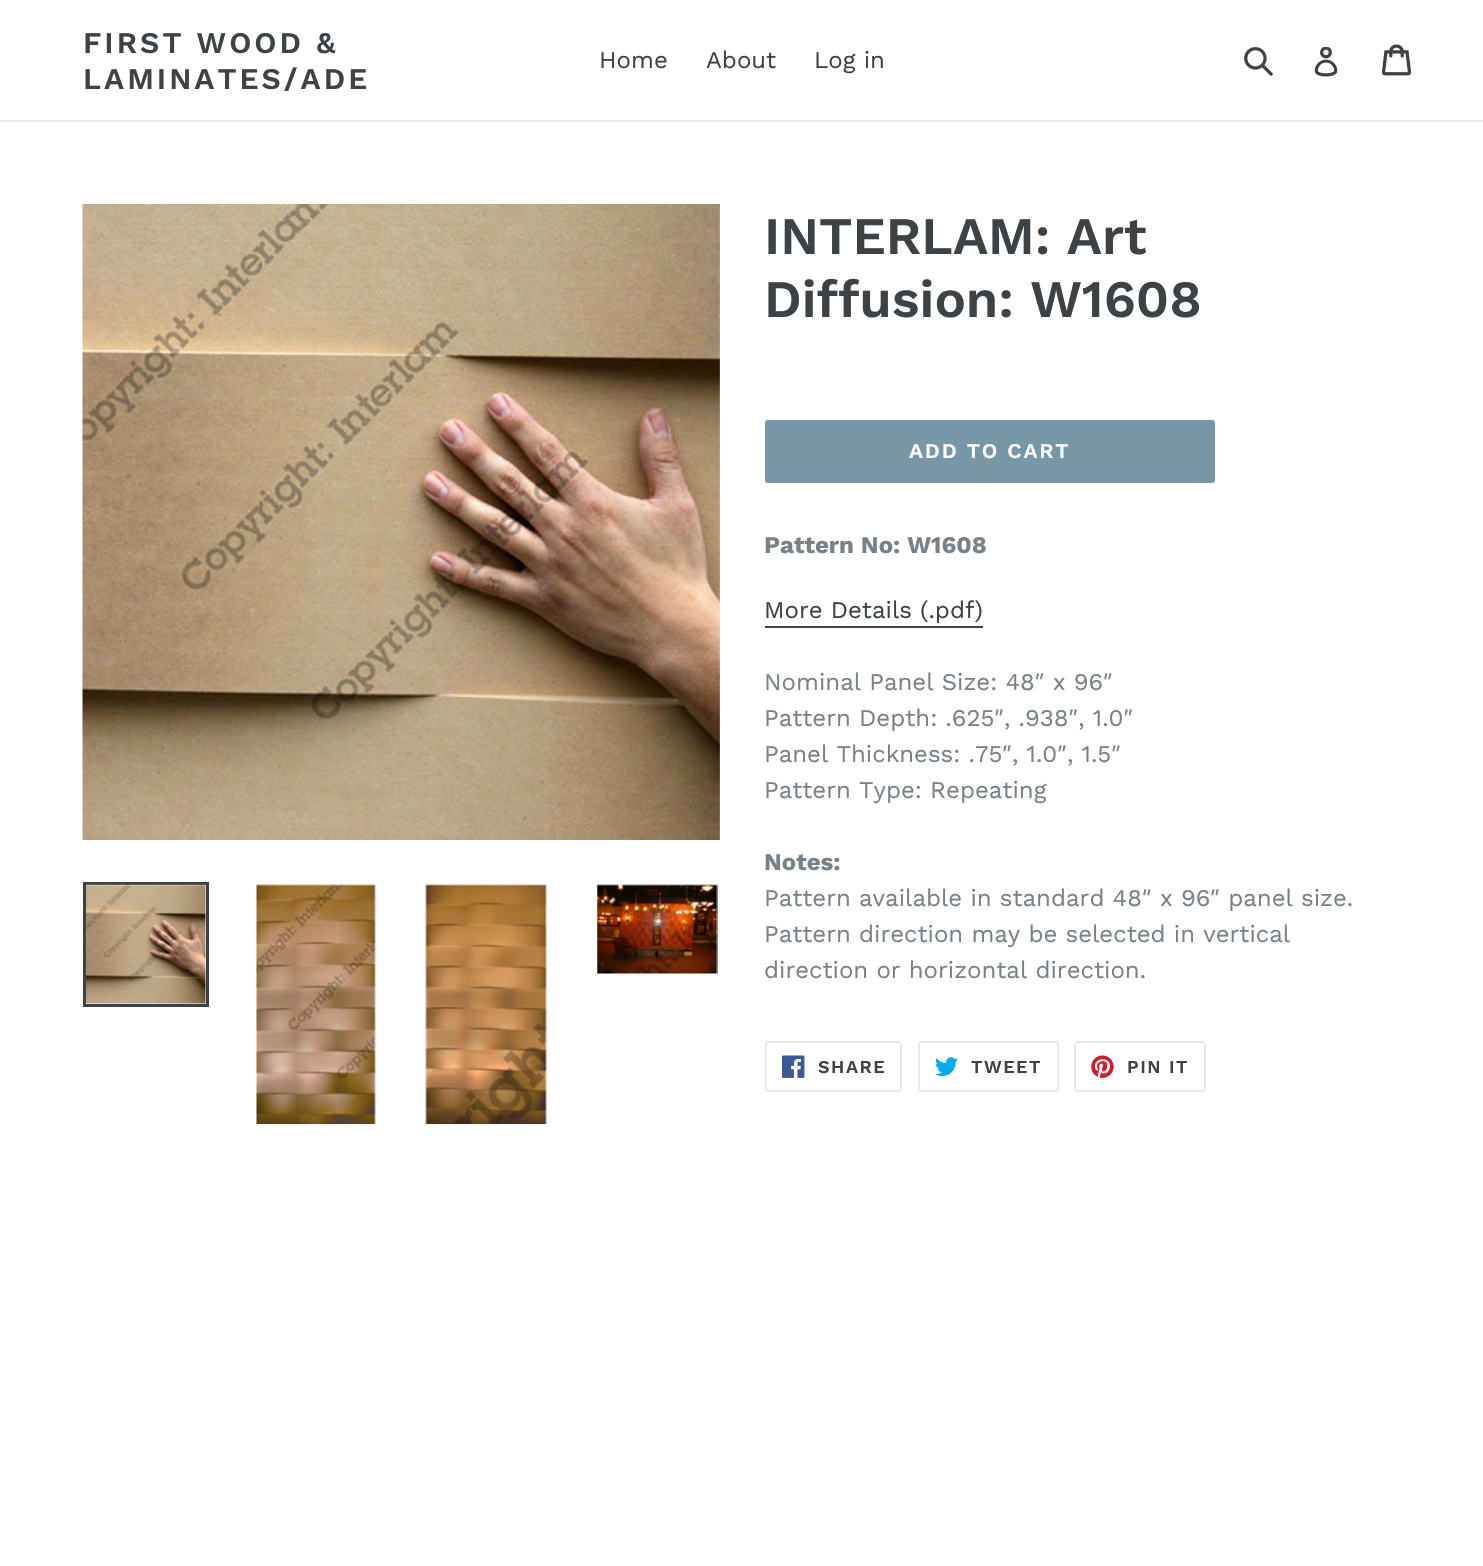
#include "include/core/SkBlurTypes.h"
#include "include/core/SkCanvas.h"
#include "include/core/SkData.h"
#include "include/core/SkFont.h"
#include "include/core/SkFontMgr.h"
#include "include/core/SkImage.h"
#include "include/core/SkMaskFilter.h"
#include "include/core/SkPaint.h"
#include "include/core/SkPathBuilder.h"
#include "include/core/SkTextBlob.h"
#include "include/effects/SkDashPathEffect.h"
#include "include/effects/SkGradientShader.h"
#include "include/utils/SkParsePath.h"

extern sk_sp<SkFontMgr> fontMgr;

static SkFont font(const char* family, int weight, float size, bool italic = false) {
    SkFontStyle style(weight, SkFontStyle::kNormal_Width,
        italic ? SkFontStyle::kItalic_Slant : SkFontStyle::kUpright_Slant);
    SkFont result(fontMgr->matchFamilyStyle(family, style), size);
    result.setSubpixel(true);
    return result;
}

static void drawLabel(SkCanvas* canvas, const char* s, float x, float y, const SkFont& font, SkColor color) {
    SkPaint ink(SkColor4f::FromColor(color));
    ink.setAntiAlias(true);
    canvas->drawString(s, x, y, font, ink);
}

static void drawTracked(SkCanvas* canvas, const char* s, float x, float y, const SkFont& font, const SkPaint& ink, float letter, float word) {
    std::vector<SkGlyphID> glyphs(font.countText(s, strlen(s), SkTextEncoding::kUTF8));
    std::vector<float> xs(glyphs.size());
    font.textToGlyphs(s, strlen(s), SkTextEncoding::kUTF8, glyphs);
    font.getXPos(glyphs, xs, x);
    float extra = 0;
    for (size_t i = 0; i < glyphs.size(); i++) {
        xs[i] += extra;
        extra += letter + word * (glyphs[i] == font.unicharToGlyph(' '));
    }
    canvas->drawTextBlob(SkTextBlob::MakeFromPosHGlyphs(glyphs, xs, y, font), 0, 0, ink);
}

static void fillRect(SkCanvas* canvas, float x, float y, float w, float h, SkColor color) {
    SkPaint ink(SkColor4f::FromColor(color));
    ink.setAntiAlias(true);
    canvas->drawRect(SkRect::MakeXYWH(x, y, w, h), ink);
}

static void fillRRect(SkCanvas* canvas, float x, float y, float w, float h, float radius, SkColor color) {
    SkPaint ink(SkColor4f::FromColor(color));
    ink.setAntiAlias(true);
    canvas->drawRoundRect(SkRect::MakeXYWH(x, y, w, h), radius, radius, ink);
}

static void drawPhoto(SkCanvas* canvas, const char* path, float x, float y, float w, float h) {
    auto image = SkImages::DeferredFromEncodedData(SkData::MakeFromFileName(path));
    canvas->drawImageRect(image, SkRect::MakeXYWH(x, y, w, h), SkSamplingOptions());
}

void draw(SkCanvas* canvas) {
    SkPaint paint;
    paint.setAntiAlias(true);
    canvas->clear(0xFFFFFFFF);
    fillRect(canvas, 0, 120, 1483, 2, 0xFFE8E9EB);
    SkFont font1 = font("Work Sans", 600, 30);
    paint.setColor(0xFF3D4246);
    drawTracked(canvas, "FIRST WOOD &", 83, 53, font1, paint, 3, 0);
    drawTracked(canvas, "LAMINATES/ADE", 83, 89, font1, paint, 3, 0);
    SkFont font2 = font("Work Sans", 400, 24);
    drawLabel(canvas, "Home", 599, 68, font2, 0xFF3D4246);
    drawLabel(canvas, "About", 706, 68, font2, 0xFF3D4246);
    drawLabel(canvas, "Log in", 814, 68, font2, 0xFF3D4246);
    drawPhoto(canvas, "assets/img1.png", 1244, 47, 29, 29);
    drawPhoto(canvas, "assets/img2.png", 1314, 47, 24, 30);
    drawPhoto(canvas, "assets/img3.png", 1382, 44, 30, 32);
    drawPhoto(canvas, "assets/img4.png", 82, 204, 638, 636);
    paint.setStroke(true);
    paint.setStrokeWidth(3);
    canvas->drawRect(SkRect::MakeXYWH(84.5f, 883.5f, 123, 122), paint);
    drawPhoto(canvas, "assets/img5.png", 86, 884, 120, 120);
    drawPhoto(canvas, "assets/img6.png", 256, 884, 120, 240);
    drawPhoto(canvas, "assets/img7.png", 425, 884, 122, 240);
    drawPhoto(canvas, "assets/img8.png", 597, 884, 121, 90);
    SkFont font3 = font("Work Sans", 600, 52.5f);
    drawLabel(canvas, "INTERLAM: Art", 764, 254, font3, 0xFF3D4246);
    drawLabel(canvas, "Diffusion: W1608", 764, 317, font3, 0xFF3D4246);
    fillRRect(canvas, 765, 420, 450, 63, 3, 0xFF7796A8);
    SkFont font4 = font("Work Sans", 600, 21);
    paint.setStroke(false);
    paint.setColor(0xFFFFFFFF);
    drawTracked(canvas, "ADD TO CART", 909, 458, font4, paint, 1.75f, 0);
    SkFont font5 = font("Work Sans", 700, 24);
    drawLabel(canvas, "Pattern No: W1608", 764, 553, font5, 0xFF788188);
    drawLabel(canvas, "More Details (.pdf)", 764, 618, font2, 0xFF3D4246);
    fillRect(canvas, 765, 626, 218, 2, 0xFF3D4246);
    drawLabel(canvas, "Nominal Panel Size: 48″ x 96″", 764, 690, font2, 0xFF788188);
    drawLabel(canvas, "Pattern Depth: .625″, .938″, 1.0″", 764, 726, font2, 0xFF788188);
    drawLabel(canvas, "Panel Thickness: .75″, 1.0″, 1.5″", 764, 762, font2, 0xFF788188);
    drawLabel(canvas, "Pattern Type: Repeating", 764, 798, font2, 0xFF788188);
    drawLabel(canvas, "Notes:", 764, 870, font5, 0xFF788188);
    drawLabel(canvas, "Pattern available in standard 48″ x 96″ panel size.", 764, 906, font2, 0xFF788188);
    drawLabel(canvas, "Pattern direction may be selected in vertical", 764, 942, font2, 0xFF788188);
    drawLabel(canvas, "direction or horizontal direction.", 764, 978, font2, 0xFF788188);
    paint.setStroke(true);
    paint.setStrokeWidth(2);
    paint.setColor(0xFFE8E9EB);
    canvas->drawRoundRect(SkRect::MakeXYWH(766, 1042, 135, 49), 2, 2, paint);
    drawPhoto(canvas, "assets/img9.png", 782, 1055, 23, 23);
    SkFont font6 = font("Work Sans", 600, 18);
    paint.setStroke(false);
    paint.setColor(0xFF3D4246);
    drawTracked(canvas, "SHARE", 818, 1073, font6, paint, 1.5f, 0);
    paint.setStroke(true);
    paint.setColor(0xFFE8E9EB);
    canvas->drawRoundRect(SkRect::MakeXYWH(919, 1042, 139, 49), 2, 2, paint);
    drawPhoto(canvas, "assets/img10.png", 935, 1057, 23, 20);
    paint.setStroke(false);
    paint.setColor(0xFF3D4246);
    drawTracked(canvas, "TWEET", 971, 1073, font6, paint, 1.5f, 0);
    paint.setStroke(true);
    paint.setColor(0xFFE8E9EB);
    canvas->drawRoundRect(SkRect::MakeXYWH(1075, 1042, 130, 49), 2, 2, paint);
    drawPhoto(canvas, "assets/img11.png", 1091, 1055, 23, 23);
    paint.setStroke(false);
    paint.setColor(0xFF3D4246);
    drawTracked(canvas, "PIN IT", 1127, 1073, font6, paint, 1.5f, 0);
}
